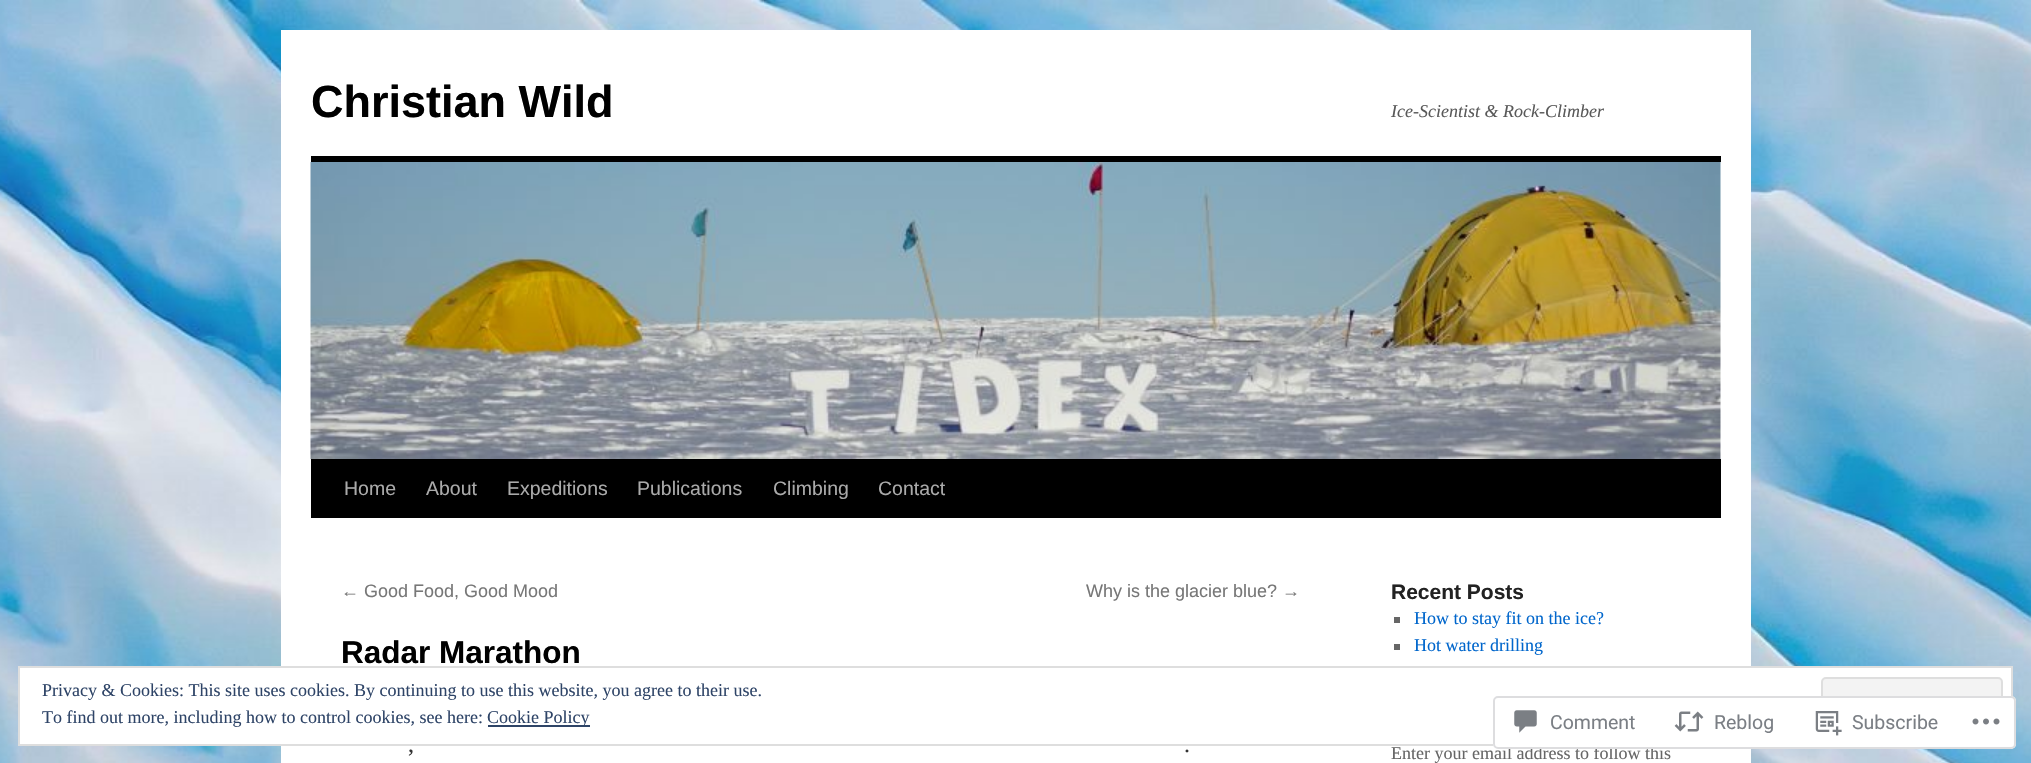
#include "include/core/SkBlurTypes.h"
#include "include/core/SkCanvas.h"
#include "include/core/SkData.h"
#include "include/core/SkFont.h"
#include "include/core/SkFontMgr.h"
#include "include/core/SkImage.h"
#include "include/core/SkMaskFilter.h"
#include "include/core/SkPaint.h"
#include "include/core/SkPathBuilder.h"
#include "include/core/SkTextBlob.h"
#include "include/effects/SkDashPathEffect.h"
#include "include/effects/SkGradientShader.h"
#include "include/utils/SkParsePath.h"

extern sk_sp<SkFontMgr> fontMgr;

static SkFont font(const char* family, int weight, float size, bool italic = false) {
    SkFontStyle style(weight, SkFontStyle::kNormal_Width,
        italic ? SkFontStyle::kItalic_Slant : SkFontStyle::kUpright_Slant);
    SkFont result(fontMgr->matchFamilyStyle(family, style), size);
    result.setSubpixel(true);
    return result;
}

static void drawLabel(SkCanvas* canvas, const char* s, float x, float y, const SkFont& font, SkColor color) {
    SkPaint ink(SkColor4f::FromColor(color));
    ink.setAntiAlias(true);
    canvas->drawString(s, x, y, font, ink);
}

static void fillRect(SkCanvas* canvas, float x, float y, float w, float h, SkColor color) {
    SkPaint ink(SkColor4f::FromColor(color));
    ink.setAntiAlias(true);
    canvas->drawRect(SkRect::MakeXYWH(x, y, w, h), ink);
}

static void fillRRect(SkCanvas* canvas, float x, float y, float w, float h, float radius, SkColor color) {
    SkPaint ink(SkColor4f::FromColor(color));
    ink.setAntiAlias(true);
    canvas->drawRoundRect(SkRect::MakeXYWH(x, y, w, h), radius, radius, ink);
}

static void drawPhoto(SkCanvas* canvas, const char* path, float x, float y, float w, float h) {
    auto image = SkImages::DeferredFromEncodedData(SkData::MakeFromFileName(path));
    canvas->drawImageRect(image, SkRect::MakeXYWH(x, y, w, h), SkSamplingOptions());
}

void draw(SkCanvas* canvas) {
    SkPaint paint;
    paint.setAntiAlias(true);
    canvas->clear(0xFFFFFFFF);
    drawPhoto(canvas, "assets/img1.png", 0, 0, 2031, 763);
    fillRect(canvas, 281, 30, 1470, 733, 0xFFFFFFFF);
    SkFont font1 = font("Liberation Sans", 700, 45);
    drawLabel(canvas, "Christian Wild", 311, 117, font1, 0xFF000000);
    SkFont font2 = font("Liberation Serif", 400, 18, true);
    drawLabel(canvas, "Ice-Scientist & Rock-Climber", 1391, 117, font2, 0xFF595959);
    fillRect(canvas, 311, 156, 1410, 6, 0xFF000000);
    fillRect(canvas, 311, 459, 1410, 59, 0xFF000000);
    drawPhoto(canvas, "assets/img2.png", 310, 162, 1411, 297);
    SkFont font3 = font("Liberation Sans", 400, 19.5f);
    drawLabel(canvas, "Home", 344, 495, font3, 0xFFAAAAAA);
    drawLabel(canvas, "About", 426, 495, font3, 0xFFAAAAAA);
    drawLabel(canvas, "Expeditions", 507, 495, font3, 0xFFAAAAAA);
    drawLabel(canvas, "Publications", 637, 495, font3, 0xFFAAAAAA);
    drawLabel(canvas, "Climbing", 773, 495, font3, 0xFFAAAAAA);
    drawLabel(canvas, "Contact", 878, 495, font3, 0xFFAAAAAA);
    SkFont font4 = font("Liberation Sans", 400, 18);
    drawLabel(canvas, "← Good Food, Good Mood", 341, 597, font4, 0xFF777777);
    drawLabel(canvas, "Why is the glacier blue? →", 1086, 597, font4, 0xFF777777);
    SkFont font5 = font("Liberation Sans", 700, 31.5f);
    drawLabel(canvas, "Radar Marathon", 341, 663, font5, 0xFF000000);
    SkFont font6 = font("Liberation Serif", 400, 24);
    drawLabel(canvas, ",", 408, 752, font6, 0xFF333333);
    drawLabel(canvas, ".", 1184, 752, font6, 0xFF333333);
    SkFont font7 = font("Liberation Sans", 700, 21);
    drawLabel(canvas, "Recent Posts", 1391, 599, font7, 0xFF222222);
    fillRect(canvas, 1394, 617, 6, 6, 0xFF666666);
    SkFont font8 = font("Liberation Serif", 400, 18);
    drawLabel(canvas, "How to stay fit on the ice?", 1414, 624, font8, 0xFF0066CC);
    fillRect(canvas, 1394, 644, 6, 6, 0xFF666666);
    drawLabel(canvas, "Hot water drilling", 1414, 651, font8, 0xFF0066CC);
    drawLabel(canvas, "Enter your email address to follow this", 1391, 759, font8, 0xFF666666);
    paint.setColor(0xFFFFFFFF);
    canvas->drawRect(SkRect::MakeXYWH(19, 667, 1993, 78), paint);
    paint.setStroke(true);
    paint.setStrokeWidth(2);
    paint.setColor(0xFFDEDEDE);
    canvas->drawRect(SkRect::MakeXYWH(19, 667, 1993, 78), paint);
    drawLabel(canvas, "Privacy & Cookies: This site uses cookies. By continuing to use this website, you agree to their use.", 42, 696, font8, 0xFF2E4467);
    paint.setStroke(false);
    paint.setColor(0xFFF3F3F3);
    canvas->drawRoundRect(SkRect::MakeXYWH(1822, 678, 180, 56), 4, 4, paint);
    paint.setStroke(true);
    paint.setColor(0xFFDEDEDE);
    canvas->drawRoundRect(SkRect::MakeXYWH(1822, 678, 180, 56), 4, 4, paint);
    drawLabel(canvas, "To find out more, including how to control cookies, see here:", 42, 723, font8, 0xFF2E4467);
    fillRect(canvas, 488, 725, 102, 2, 0xFF2E4467);
    drawLabel(canvas, "Cookie Policy", 487, 723, font8, 0xFF2E4467);
    fillRRect(canvas, 1493, 696, 523, 53, 5, 0xFAFFFFFF);
    paint.setColor(0xFADCDCDE);
    canvas->drawRoundRect(SkRect::MakeXYWH(1494, 697, 521, 51), 4, 4, paint);
    drawPhoto(canvas, "assets/img3.png", 1514, 710, 23, 23);
    SkFont font9 = font("Roboto", 400, 19.5f);
    drawLabel(canvas, "Comment", 1550, 729, font9, 0xFF7B7F85);
    drawPhoto(canvas, "assets/img4.png", 1674, 711, 30, 21);
    drawLabel(canvas, "Reblog", 1714, 729, font9, 0xFF7B7F85);
    drawPhoto(canvas, "assets/img5.png", 1815, 711, 27, 25);
    drawLabel(canvas, "Subscribe", 1852, 729, font9, 0xFF7B7F85);
    drawPhoto(canvas, "assets/img6.png", 1972, 718, 28, 7);
}
